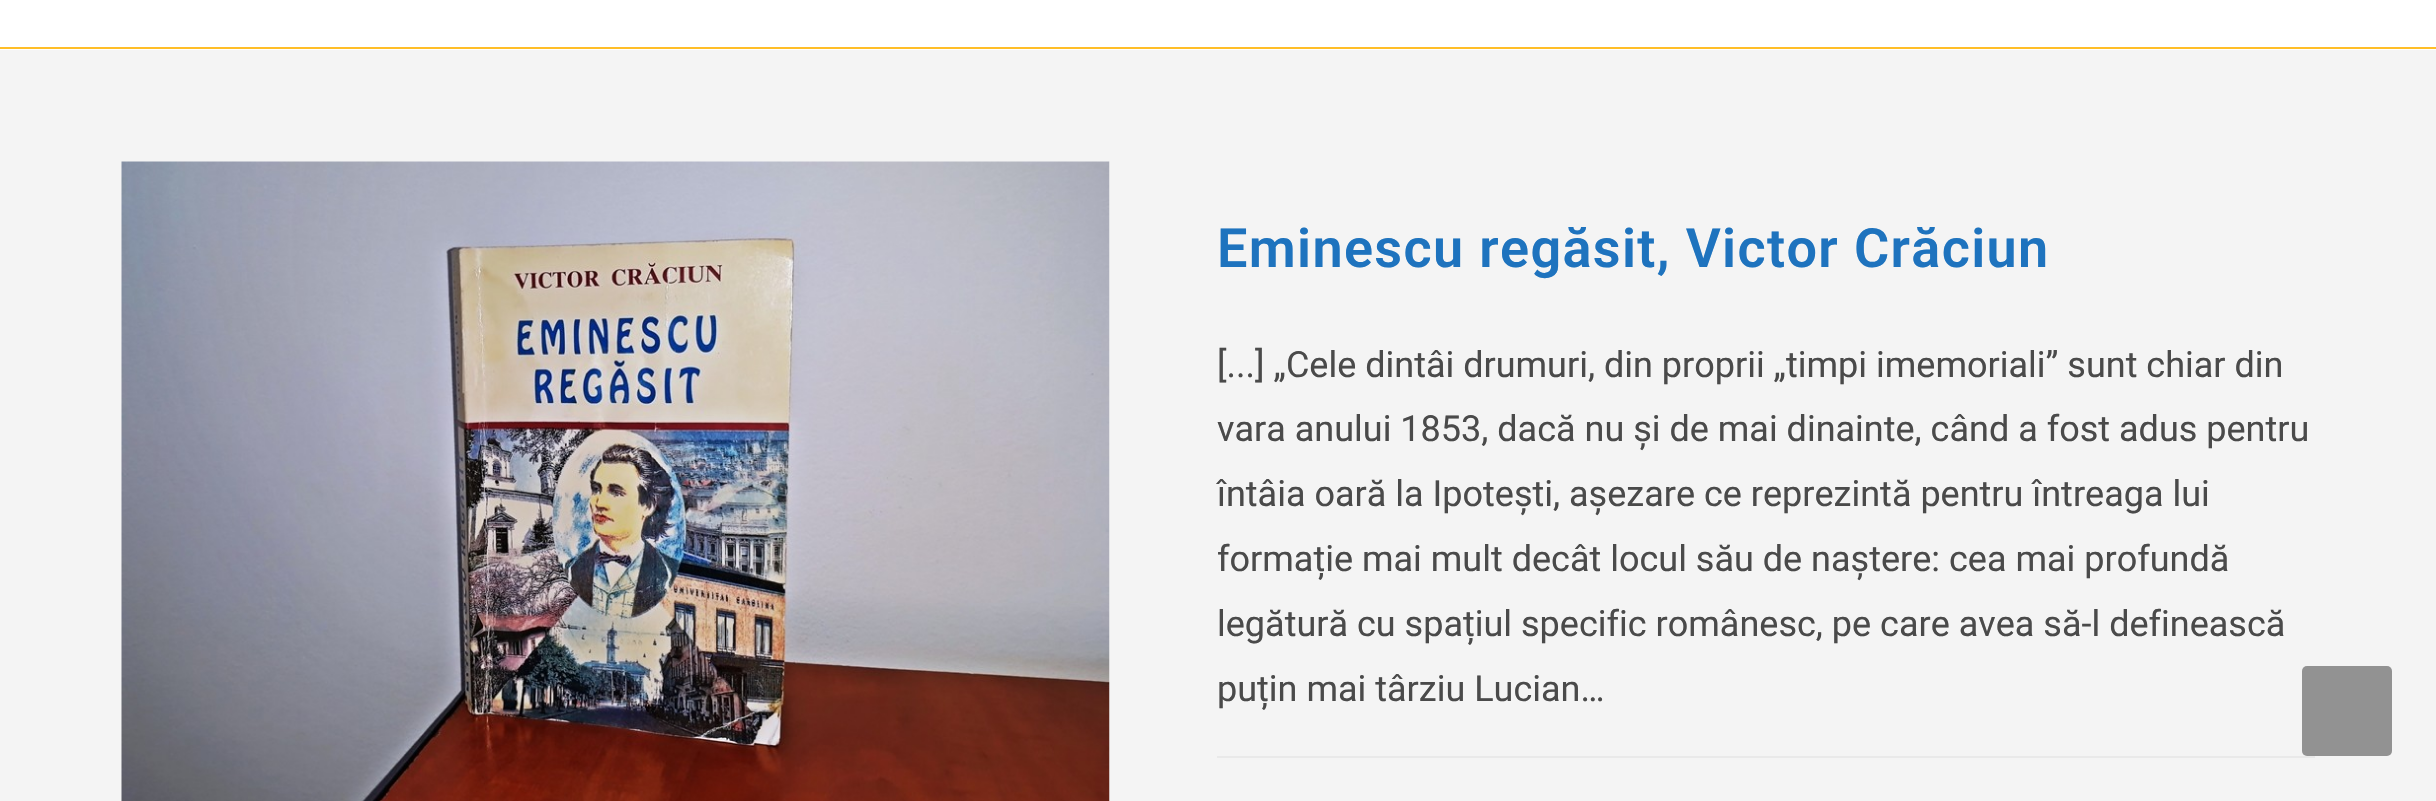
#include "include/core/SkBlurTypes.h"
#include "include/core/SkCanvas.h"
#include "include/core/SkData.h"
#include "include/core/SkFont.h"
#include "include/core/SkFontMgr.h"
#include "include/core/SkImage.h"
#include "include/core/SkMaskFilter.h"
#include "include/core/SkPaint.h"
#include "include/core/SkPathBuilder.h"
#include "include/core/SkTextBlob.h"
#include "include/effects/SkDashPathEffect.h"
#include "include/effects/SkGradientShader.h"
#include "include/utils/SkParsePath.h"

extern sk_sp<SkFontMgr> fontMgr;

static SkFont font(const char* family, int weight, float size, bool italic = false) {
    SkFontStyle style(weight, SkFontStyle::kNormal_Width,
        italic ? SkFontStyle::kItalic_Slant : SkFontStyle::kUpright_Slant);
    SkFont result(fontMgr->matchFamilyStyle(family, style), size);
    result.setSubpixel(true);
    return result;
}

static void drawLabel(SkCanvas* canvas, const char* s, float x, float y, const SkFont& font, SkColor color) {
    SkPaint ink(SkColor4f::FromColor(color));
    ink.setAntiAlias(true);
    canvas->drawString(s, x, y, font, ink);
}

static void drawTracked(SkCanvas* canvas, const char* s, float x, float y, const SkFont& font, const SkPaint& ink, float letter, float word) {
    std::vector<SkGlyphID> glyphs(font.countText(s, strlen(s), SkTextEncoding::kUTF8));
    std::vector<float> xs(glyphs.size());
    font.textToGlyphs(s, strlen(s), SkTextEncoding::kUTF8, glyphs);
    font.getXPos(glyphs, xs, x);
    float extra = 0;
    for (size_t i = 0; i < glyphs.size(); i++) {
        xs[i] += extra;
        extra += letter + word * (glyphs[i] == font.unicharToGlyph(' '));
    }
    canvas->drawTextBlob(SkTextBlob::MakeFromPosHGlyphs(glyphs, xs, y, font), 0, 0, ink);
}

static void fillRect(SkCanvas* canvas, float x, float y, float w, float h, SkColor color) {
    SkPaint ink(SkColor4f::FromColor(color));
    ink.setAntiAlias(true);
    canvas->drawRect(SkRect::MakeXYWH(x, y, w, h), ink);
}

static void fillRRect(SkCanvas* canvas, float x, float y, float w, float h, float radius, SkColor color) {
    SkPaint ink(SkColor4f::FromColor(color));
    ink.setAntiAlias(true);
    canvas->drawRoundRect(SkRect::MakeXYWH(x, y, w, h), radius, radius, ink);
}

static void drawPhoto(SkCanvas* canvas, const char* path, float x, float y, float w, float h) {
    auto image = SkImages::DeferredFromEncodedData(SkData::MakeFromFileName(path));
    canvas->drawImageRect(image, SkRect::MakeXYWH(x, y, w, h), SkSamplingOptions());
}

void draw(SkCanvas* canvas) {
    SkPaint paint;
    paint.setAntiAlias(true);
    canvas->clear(0xFFF4F4F4);
    fillRect(canvas, 0, 0, 2436, 50, 0xFFFFFFFF);
    fillRect(canvas, 0, 47, 2436, 2, 0xFFFFBE28);
    drawPhoto(canvas, "assets/img1.png", 121, 161, 989, 640);
    SkFont font1 = font("Roboto", 600, 54);
    paint.setColor(0xFF1E73BE);
    drawTracked(canvas, "Eminescu regăsit, Victor Crăciun", 1217, 267, font1, paint, 1.35f, 0);
    SkFont font2 = font("Roboto", 400, 36);
    drawLabel(canvas, "[...] „Cele dintâi drumuri, din proprii „timpi imemoriali” sunt chiar din", 1217, 377, font2, 0xFF4A4A4A);
    drawLabel(canvas, "vara anului 1853, dacă nu și de mai dinainte, când a fost adus pentru", 1217, 441, font2, 0xFF4A4A4A);
    drawLabel(canvas, "întâia oară la Ipotești, așezare ce reprezintă pentru întreaga lui", 1217, 506, font2, 0xFF4A4A4A);
    drawLabel(canvas, "formație mai mult decât locul său de naștere: cea mai profundă", 1217, 571, font2, 0xFF4A4A4A);
    drawLabel(canvas, "legătură cu spațiul specific românesc, pe care avea să-l definească", 1217, 636, font2, 0xFF4A4A4A);
    drawLabel(canvas, "puțin mai târziu Lucian…", 1217, 701, font2, 0xFF4A4A4A);
    fillRect(canvas, 1217, 756, 1098, 2, 0xFFE9E9E9);
    fillRRect(canvas, 2302, 666, 90, 90, 5, 0xFF929292);
}
